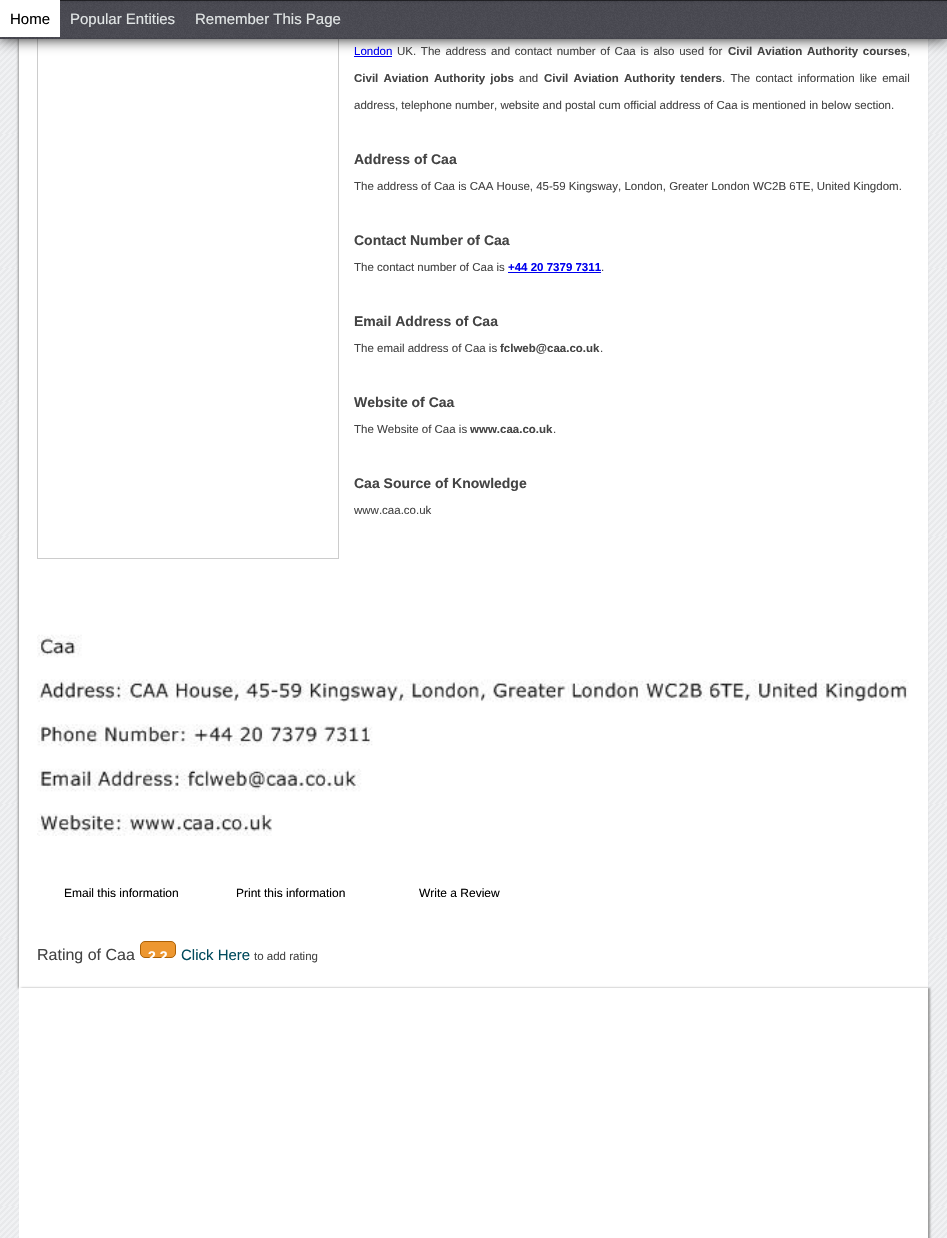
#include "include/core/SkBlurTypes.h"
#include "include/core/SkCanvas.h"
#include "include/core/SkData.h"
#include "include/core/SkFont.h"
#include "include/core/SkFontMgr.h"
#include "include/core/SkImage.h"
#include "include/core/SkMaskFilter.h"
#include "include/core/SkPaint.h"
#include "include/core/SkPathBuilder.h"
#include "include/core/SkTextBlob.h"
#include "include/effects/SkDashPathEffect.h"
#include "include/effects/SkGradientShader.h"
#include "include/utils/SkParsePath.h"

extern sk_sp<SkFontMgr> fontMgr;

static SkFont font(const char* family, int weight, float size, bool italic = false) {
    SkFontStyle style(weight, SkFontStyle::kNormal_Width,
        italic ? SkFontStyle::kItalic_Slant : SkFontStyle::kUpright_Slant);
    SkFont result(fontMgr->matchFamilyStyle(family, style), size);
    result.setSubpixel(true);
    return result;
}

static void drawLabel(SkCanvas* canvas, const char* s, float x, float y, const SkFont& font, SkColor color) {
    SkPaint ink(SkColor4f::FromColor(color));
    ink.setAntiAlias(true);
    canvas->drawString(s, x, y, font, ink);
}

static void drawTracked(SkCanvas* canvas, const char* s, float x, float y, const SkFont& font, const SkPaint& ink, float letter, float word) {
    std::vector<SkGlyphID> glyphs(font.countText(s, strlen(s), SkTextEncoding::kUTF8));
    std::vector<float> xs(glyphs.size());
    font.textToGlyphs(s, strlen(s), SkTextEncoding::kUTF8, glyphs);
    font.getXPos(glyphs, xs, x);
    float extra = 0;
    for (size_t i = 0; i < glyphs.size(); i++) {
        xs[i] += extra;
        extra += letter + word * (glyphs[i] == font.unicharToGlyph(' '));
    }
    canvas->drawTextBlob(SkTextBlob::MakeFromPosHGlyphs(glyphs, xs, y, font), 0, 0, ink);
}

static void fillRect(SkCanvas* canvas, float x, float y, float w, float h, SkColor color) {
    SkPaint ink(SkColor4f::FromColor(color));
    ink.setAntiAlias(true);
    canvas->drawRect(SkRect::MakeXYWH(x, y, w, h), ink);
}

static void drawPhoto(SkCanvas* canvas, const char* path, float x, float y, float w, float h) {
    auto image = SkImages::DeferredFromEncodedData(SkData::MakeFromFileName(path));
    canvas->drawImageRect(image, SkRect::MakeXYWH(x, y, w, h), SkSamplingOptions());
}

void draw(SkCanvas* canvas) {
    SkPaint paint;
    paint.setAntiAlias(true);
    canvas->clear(0xFFFFFFFF);
    drawPhoto(canvas, "assets/img1.png", 0, 39, 947, 1199);
    paint.setColor(0xFF999999);
    paint.setMaskFilter(SkMaskFilter::MakeBlur(kNormal_SkBlurStyle, 1));
    canvas->drawRect(SkRect::MakeXYWH(18, -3, 909, 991), paint);
    paint.setMaskFilter(nullptr);
    fillRect(canvas, 19, 39, 909, 949, 0xFFFFFFFF);
    paint.setStroke(true);
    paint.setStrokeWidth(1);
    paint.setColor(0xFFCCCCCC);
    canvas->drawRect(SkRect::MakeXYWH(37.5f, -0.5f, 301, 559), paint);
    fillRect(canvas, 354, 56, 38, 1, 0xFF0000EE);
    paint.setStroke(false);
    paint.setColor(0xFF000000);
    paint.setMaskFilter(SkMaskFilter::MakeBlur(kNormal_SkBlurStyle, 7.5f));
    canvas->drawRect(SkRect::MakeXYWH(0, -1, 947, 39), paint);
    paint.setMaskFilter(nullptr);
    drawPhoto(canvas, "assets/img2.png", 0, 0, 947, 39);
    fillRect(canvas, 60, 0, 887, 1, 0x80000000);
    fillRect(canvas, 0, 0, 60, 37, 0xFFFFFFFF);
    SkFont font1 = font("Liberation Sans", 400, 15);
    drawLabel(canvas, "Home", 10, 24, font1, 0xFF000000);
    drawLabel(canvas, "Popular Entities", 70, 24, font1, 0xFFE2E6E6);
    drawLabel(canvas, "Remember This Page", 195, 24, font1, 0xFFE2E6E6);
    SkFont font2 = font("Liberation Sans", 400, 11.5f);
    drawLabel(canvas, "London", 354, 55, font2, 0xFF0000EE);
    paint.setColor(0xFF444444);
    drawTracked(canvas, "UK. The address and contact number of Caa is also used for", 397, 55, font2, paint, 0, 1.5f);
    SkFont font3 = font("Liberation Sans", 700, 11.5f);
    drawTracked(canvas, "Civil Aviation Authority courses", 728, 55, font3, paint, 0, 1.5f);
    drawLabel(canvas, ",", 907, 55, font2, 0xFF444444);
    drawTracked(canvas, "Civil Aviation Authority jobs", 354, 82, font3, paint, 0, 2);
    drawLabel(canvas, "and", 519, 82, font2, 0xFF444444);
    drawTracked(canvas, "Civil Aviation Authority tenders", 544, 82, font3, paint, 0, 2);
    drawTracked(canvas, ". The contact information like email", 722, 82, font2, paint, 0, 2);
    drawLabel(canvas, "address, telephone number, website and postal cum official address of Caa is mentioned in below section.", 354, 109, font2, 0xFF444444);
    SkFont font4 = font("Liberation Sans", 700, 14);
    drawLabel(canvas, "Address of Caa", 354, 164, font4, 0xFF444444);
    drawLabel(canvas, "The address of Caa is CAA House, 45-59 Kingsway, London, Greater London WC2B 6TE, United Kingdom.", 354, 190, font2, 0xFF444444);
    drawLabel(canvas, "Contact Number of Caa", 354, 245, font4, 0xFF444444);
    drawLabel(canvas, "The contact number of Caa is", 354, 271, font2, 0xFF444444);
    drawLabel(canvas, "+44 20 7379 7311", 508, 271, font3, 0xFF0000EE);
    fillRect(canvas, 508, 272, 93, 1, 0xFF0000EE);
    drawLabel(canvas, ".", 601, 271, font2, 0xFF444444);
    drawLabel(canvas, "Email Address of Caa", 354, 326, font4, 0xFF444444);
    drawLabel(canvas, "The email address of Caa is", 354, 352, font2, 0xFF444444);
    drawLabel(canvas, "fclweb@caa.co.uk", 500, 352, font3, 0xFF444444);
    drawLabel(canvas, ".", 600, 352, font2, 0xFF444444);
    drawLabel(canvas, "Website of Caa", 354, 407, font4, 0xFF444444);
    drawLabel(canvas, "The Website of Caa is", 354, 433, font2, 0xFF444444);
    drawLabel(canvas, "www.caa.co.uk", 470, 433, font3, 0xFF444444);
    drawLabel(canvas, ".", 553, 433, font2, 0xFF444444);
    drawLabel(canvas, "Caa Source of Knowledge", 354, 488, font4, 0xFF444444);
    drawLabel(canvas, "www.caa.co.uk", 354, 514, font2, 0xFF444444);
    drawPhoto(canvas, "assets/img3.png", 37, 634, 872, 202);
    SkFont font5 = font("Liberation Sans", 400, 12);
    drawLabel(canvas, "Email this information", 64, 897, font5, 0xFF000000);
    drawLabel(canvas, "Print this information", 236, 897, font5, 0xFF000000);
    drawLabel(canvas, "Write a Review", 419, 897, font5, 0xFF000000);
    SkFont font6 = font("Liberation Sans", 400, 16);
    drawLabel(canvas, "Rating of Caa", 37, 960, font6, 0xFF444444);
    paint.setColor(0xFFED9730);
    canvas->drawRoundRect(SkRect::MakeXYWH(140.5f, 941.5f, 35, 16), 4.5f, 4.5f, paint);
    paint.setStroke(true);
    paint.setColor(0xFFAC6004);
    canvas->drawRoundRect(SkRect::MakeXYWH(140.5f, 941.5f, 35, 16), 4.5f, 4.5f, paint);
    drawLabel(canvas, "2.2", 148, 961, font4, 0xFFFFFFFF);
    drawLabel(canvas, "Click Here", 181, 960, font1, 0xFF014B5D);
    drawLabel(canvas, "to add rating", 254, 960, font2, 0xFF444444);
    paint.setStroke(false);
    paint.setColor(0xFF999999);
    paint.setMaskFilter(SkMaskFilter::MakeBlur(kNormal_SkBlurStyle, 1));
    canvas->drawRect(SkRect::MakeXYWH(21, 988, 909, 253), paint);
    paint.setMaskFilter(nullptr);
    fillRect(canvas, 19, 988, 909, 250, 0xFFFFFFFF);
}
